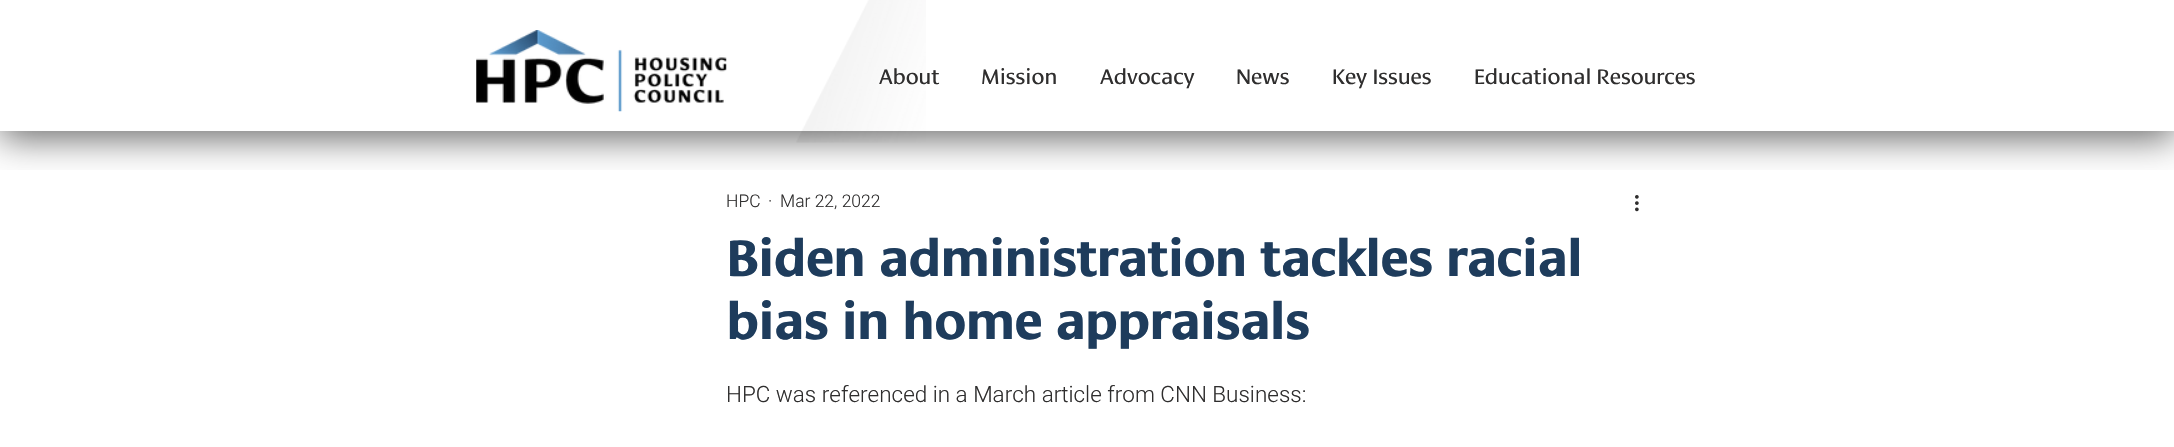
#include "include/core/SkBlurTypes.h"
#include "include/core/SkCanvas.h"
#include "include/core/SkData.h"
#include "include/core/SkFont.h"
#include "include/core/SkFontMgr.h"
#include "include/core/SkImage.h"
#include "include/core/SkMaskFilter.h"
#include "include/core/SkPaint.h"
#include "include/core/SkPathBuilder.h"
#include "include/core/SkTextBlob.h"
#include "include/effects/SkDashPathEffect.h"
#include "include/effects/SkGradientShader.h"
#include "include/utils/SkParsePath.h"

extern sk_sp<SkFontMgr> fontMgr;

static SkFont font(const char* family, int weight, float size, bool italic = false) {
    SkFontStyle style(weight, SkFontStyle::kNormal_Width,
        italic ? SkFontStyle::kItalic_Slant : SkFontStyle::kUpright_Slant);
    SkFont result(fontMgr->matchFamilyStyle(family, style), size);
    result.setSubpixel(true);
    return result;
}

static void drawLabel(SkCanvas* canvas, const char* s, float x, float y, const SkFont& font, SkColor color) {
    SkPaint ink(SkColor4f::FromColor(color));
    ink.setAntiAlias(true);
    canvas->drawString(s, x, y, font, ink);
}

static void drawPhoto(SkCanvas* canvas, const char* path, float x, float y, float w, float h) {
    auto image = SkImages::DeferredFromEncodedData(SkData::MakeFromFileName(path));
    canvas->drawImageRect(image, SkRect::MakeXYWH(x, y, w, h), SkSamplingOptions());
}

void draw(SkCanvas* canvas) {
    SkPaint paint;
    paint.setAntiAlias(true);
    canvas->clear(0xFFFFFFFF);
    canvas->save();
    canvas->clipRect(SkRect::MakeXYWH(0, 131, 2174, 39));
    paint.setColor(0x99000000);
    paint.setMaskFilter(SkMaskFilter::MakeBlur(kNormal_SkBlurStyle, 17.5f));
    canvas->drawRect(SkRect::MakeXYWH(0, 6, 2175, 132), paint);
    paint.setMaskFilter(nullptr);
    canvas->restore();
    drawPhoto(canvas, "assets/img1.png", 476, 30, 251, 82);
    drawPhoto(canvas, "assets/img2.png", 796, 0, 130, 143);
    SkFont font1 = font("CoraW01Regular", 400, 21.25f);
    drawLabel(canvas, "About", 879, 84, font1, 0xFF2F2E2E);
    drawLabel(canvas, "Mission", 981, 84, font1, 0xFF2F2E2E);
    drawLabel(canvas, "Advocacy", 1100, 84, font1, 0xFF2F2E2E);
    drawLabel(canvas, "News", 1236, 84, font1, 0xFF2F2E2E);
    drawLabel(canvas, "Key Issues", 1332, 84, font1, 0xFF2F2E2E);
    drawLabel(canvas, "Educational Resources", 1474, 84, font1, 0xFF2F2E2E);
    SkFont font2 = font("Roboto", 300, 17.5f);
    drawLabel(canvas, "HPC", 726, 207, font2, 0xFF2F2E2E);
    drawLabel(canvas, "·", 768, 207, font2, 0xFF2F2E2E);
    drawLabel(canvas, "Mar 22, 2022", 780, 207, font2, 0xFF2F2E2E);
    drawPhoto(canvas, "assets/img3.png", 1635, 195, 4, 17);
    SkFont font3 = font("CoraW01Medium", 700, 50);
    drawLabel(canvas, "Biden administration tackles racial", 726, 276, font3, 0xFF1E3C5C);
    drawLabel(canvas, "bias in home appraisals", 726, 339, font3, 0xFF1E3C5C);
    SkFont font4 = font("Roboto", 300, 22.5f);
    drawLabel(canvas, "HPC was referenced in a March article from CNN Business:", 726, 402, font4, 0xFF2F2E2E);
}
